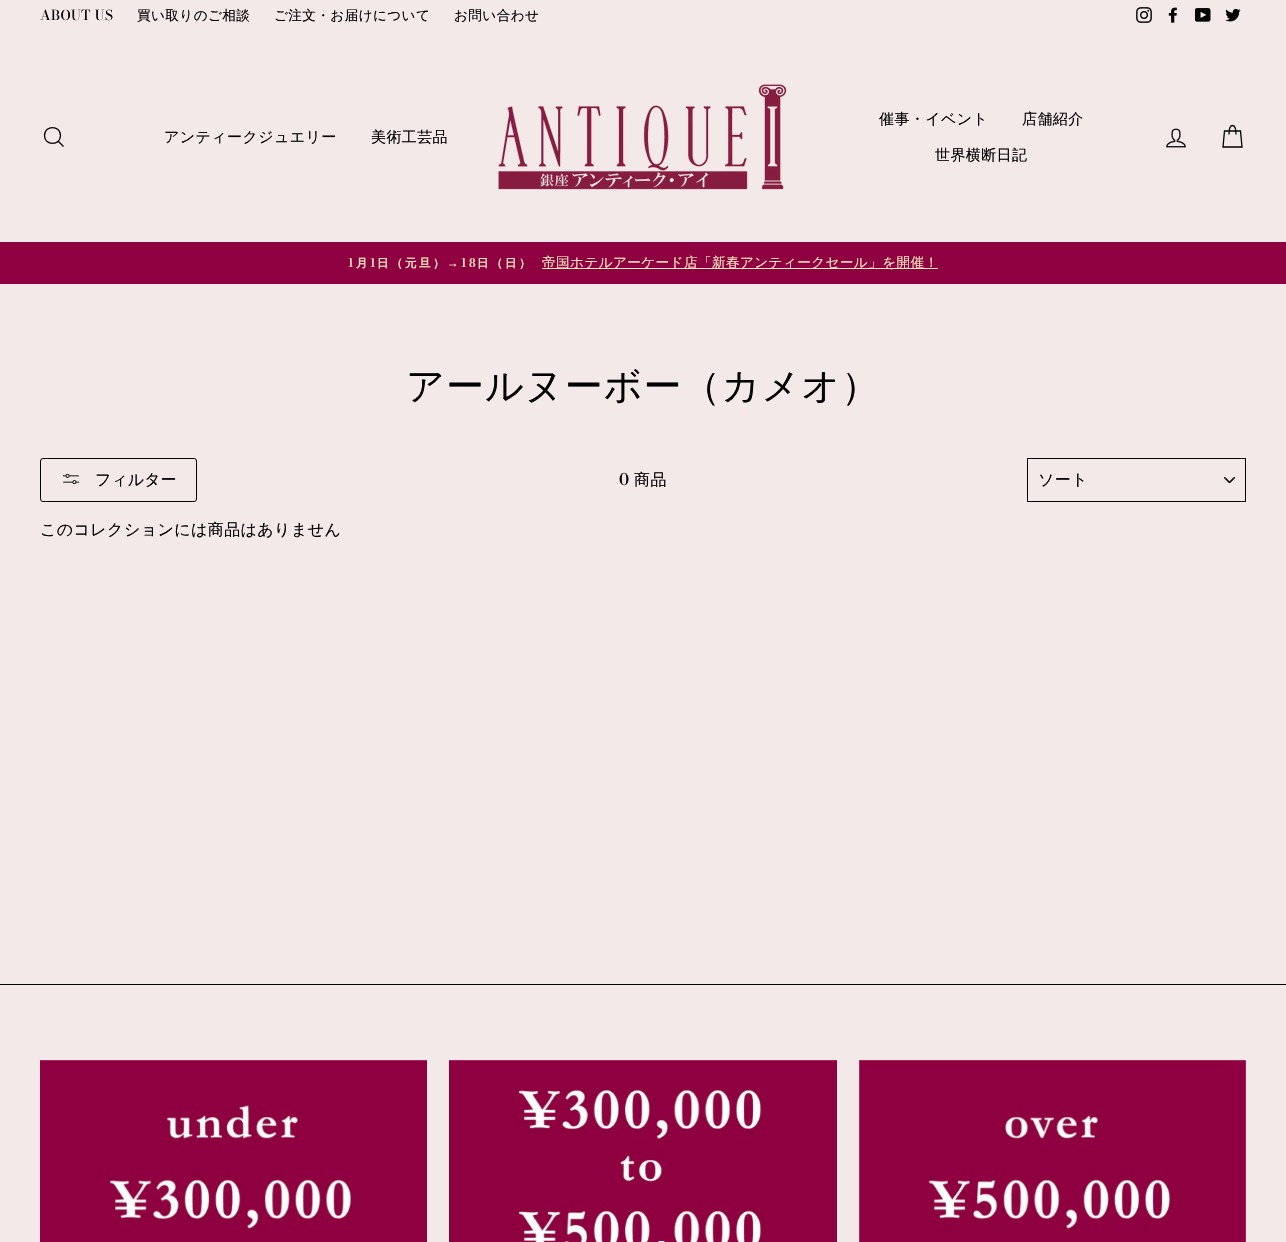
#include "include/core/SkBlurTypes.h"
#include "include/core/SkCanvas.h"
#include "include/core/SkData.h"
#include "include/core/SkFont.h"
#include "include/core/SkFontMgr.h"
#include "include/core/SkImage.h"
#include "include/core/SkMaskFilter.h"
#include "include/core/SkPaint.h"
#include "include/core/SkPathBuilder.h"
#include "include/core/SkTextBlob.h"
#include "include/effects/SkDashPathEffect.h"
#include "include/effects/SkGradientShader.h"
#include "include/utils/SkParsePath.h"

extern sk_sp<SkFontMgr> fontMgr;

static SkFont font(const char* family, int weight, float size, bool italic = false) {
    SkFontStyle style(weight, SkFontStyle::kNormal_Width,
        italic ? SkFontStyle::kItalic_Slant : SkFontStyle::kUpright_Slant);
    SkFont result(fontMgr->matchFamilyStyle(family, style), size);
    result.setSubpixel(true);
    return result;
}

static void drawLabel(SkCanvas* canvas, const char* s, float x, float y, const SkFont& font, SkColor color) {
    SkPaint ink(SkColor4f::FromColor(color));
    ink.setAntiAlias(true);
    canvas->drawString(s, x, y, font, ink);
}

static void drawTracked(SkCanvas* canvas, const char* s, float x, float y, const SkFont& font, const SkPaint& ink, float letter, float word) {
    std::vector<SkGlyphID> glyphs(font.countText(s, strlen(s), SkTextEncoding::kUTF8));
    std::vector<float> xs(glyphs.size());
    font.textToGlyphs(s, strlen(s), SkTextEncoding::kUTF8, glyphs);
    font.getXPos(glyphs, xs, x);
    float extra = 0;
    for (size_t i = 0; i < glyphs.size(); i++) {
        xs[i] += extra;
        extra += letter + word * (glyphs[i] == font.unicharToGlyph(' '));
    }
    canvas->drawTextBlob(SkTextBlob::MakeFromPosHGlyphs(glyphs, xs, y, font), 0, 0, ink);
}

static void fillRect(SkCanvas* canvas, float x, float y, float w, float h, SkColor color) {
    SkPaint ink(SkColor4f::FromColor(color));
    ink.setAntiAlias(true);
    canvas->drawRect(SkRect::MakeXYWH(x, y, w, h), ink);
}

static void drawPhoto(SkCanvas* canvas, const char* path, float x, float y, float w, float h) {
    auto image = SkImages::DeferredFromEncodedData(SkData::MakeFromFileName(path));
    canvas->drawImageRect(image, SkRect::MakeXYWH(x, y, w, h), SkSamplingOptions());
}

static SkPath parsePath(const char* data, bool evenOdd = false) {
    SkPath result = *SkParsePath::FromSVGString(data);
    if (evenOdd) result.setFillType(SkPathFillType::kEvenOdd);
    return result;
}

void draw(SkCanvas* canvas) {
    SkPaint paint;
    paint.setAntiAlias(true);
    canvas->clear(0xFFF4E9E9);
    SkFont font1 = font("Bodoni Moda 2", 500, 13.6f);
    paint.setColor(0xFF000000);
    drawTracked(canvas, "ABOUT US", 40, 20, font1, paint, 0.4f, 0);
    SkFont font2 = font("WenQuanYi Zen Hei", 500, 13.6f);
    drawTracked(canvas, "買い取りのご相談", 137, 20, font2, paint, 0.4f, 0);
    drawTracked(canvas, "ご注文・お届けについて", 274, 20, font2, paint, 0.4f, 0);
    drawTracked(canvas, "お問い合わせ", 454, 20, font2, paint, 0.4f, 0);
    drawPhoto(canvas, "assets/img1.png", 1136, 7, 16, 16);
    drawPhoto(canvas, "assets/img2.png", 1168, 7, 9, 16);
    drawPhoto(canvas, "assets/img3.png", 1195, 8, 16, 14);
    drawPhoto(canvas, "assets/img4.png", 1225, 8, 16, 14);
    paint.setStroke(true);
    paint.setStrokeWidth(1.3f);
    canvas->drawPath(parsePath("M60.5 135.5C60.5 146 44.5 146 44.5 135.5C44.5 125 60.5 125 60.5 135.5ZM63.5 146.5L58.5 141.5"), paint);
    SkFont font3 = font("WenQuanYi Zen Hei", 500, 15);
    paint.setStroke(false);
    drawTracked(canvas, "アンティークジュエリー", 164, 142, font3, paint, 0.4f, 0);
    drawTracked(canvas, "美術工芸品", 371, 142, font3, paint, 0.4f, 0);
    drawPhoto(canvas, "assets/img5.png", 498, 84, 289, 106);
    drawTracked(canvas, "催事・イベント", 879, 124, font3, paint, 0.4f, 0);
    drawTracked(canvas, "店舗紹介", 1022, 124, font3, paint, 0.4f, 0);
    drawTracked(canvas, "世界横断日記", 935, 160, font3, paint, 0.4f, 0);
    drawPhoto(canvas, "assets/img6.png", 1166, 128, 20, 20);
    paint.setStroke(true);
    canvas->drawPath(parsePath("M1229 134.5C1229 122.5 1236 122.5 1236 134.5M1224.5 131H1240.5L1242 147H1223Z"), paint);
    fillRect(canvas, 0, 242, 1286, 42, 0xFF8E0040);
    SkFont font4 = font("Bodoni Moda", 600, 11.5f);
    paint.setStroke(false);
    paint.setColor(0xFFF3E6BD);
    drawTracked(canvas, "1", 348, 267, font4, paint, 2.5f, 0);
    SkFont font5 = font("WenQuanYi Zen Hei", 700, 11.5f);
    drawTracked(canvas, "月", 356, 267, font5, paint, 2.5f, 0);
    drawTracked(canvas, "1", 370, 267, font4, paint, 2.5f, 0);
    drawTracked(canvas, "日（元旦）", 377, 267, font5, paint, 2.5f, 0);
    SkFont font6 = font("Liberation Serif", 700, 11.5f);
    drawTracked(canvas, "→", 447, 267, font6, paint, 2.5f, 0);
    drawTracked(canvas, "18", 461, 267, font4, paint, 2.5f, 0);
    drawTracked(canvas, "日（日）", 477, 267, font5, paint, 2.5f, 0);
    fillRect(canvas, 542, 268, 396, 1, 0xFFF3E6BD);
    drawTracked(canvas, "帝国ホテルアーケード店「新春アンティークセール」を開催！", 542, 267, font2, paint, 0.4f, 0);
    SkFont font7 = font("WenQuanYi Zen Hei", 500, 38);
    paint.setColor(0xFF000000);
    drawTracked(canvas, "アールヌーボー（カメオ）", 406, 399, font7, paint, 1, 0);
    paint.setStroke(true);
    paint.setStrokeWidth(1);
    canvas->drawRoundRect(SkRect::MakeXYWH(40.5f, 458.5f, 156, 43), 2.5f, 2.5f, paint);
    drawPhoto(canvas, "assets/img7.png", 62, 473, 18, 12);
    SkFont font8 = font("WenQuanYi Zen Hei", 500, 16);
    drawLabel(canvas, "フィルター", 95, 485, font8, 0xFF000000);
    SkFont font9 = font("Bodoni Moda", 500, 16);
    paint.setStroke(false);
    drawTracked(canvas, "0", 619, 485, font9, paint, 0.4f, 0);
    drawTracked(canvas, "商品", 634, 485, font8, paint, 0.4f, 0);
    drawPhoto(canvas, "assets/img8.png", 1224, 477, 11, 6);
    paint.setStroke(true);
    canvas->drawRect(SkRect::MakeXYWH(1027.5f, 458.5f, 218, 43), paint);
    paint.setStroke(false);
    drawTracked(canvas, "ソート", 1038, 485, font8, paint, 0.4f, 0);
    drawTracked(canvas, "このコレクションには商品はありません", 40, 535, font8, paint, 0.4f, 0);
    fillRect(canvas, 0, 984, 1286, 1, 0xFF000000);
    drawPhoto(canvas, "assets/img9.png", 40, 1060, 387, 182);
    drawPhoto(canvas, "assets/img10.png", 449, 1060, 388, 182);
    fillRect(canvas, 859, 1060, 387, 182, 0xFFFFFFFF);
    drawPhoto(canvas, "assets/img11.png", 859, 1060, 387, 182);
}
